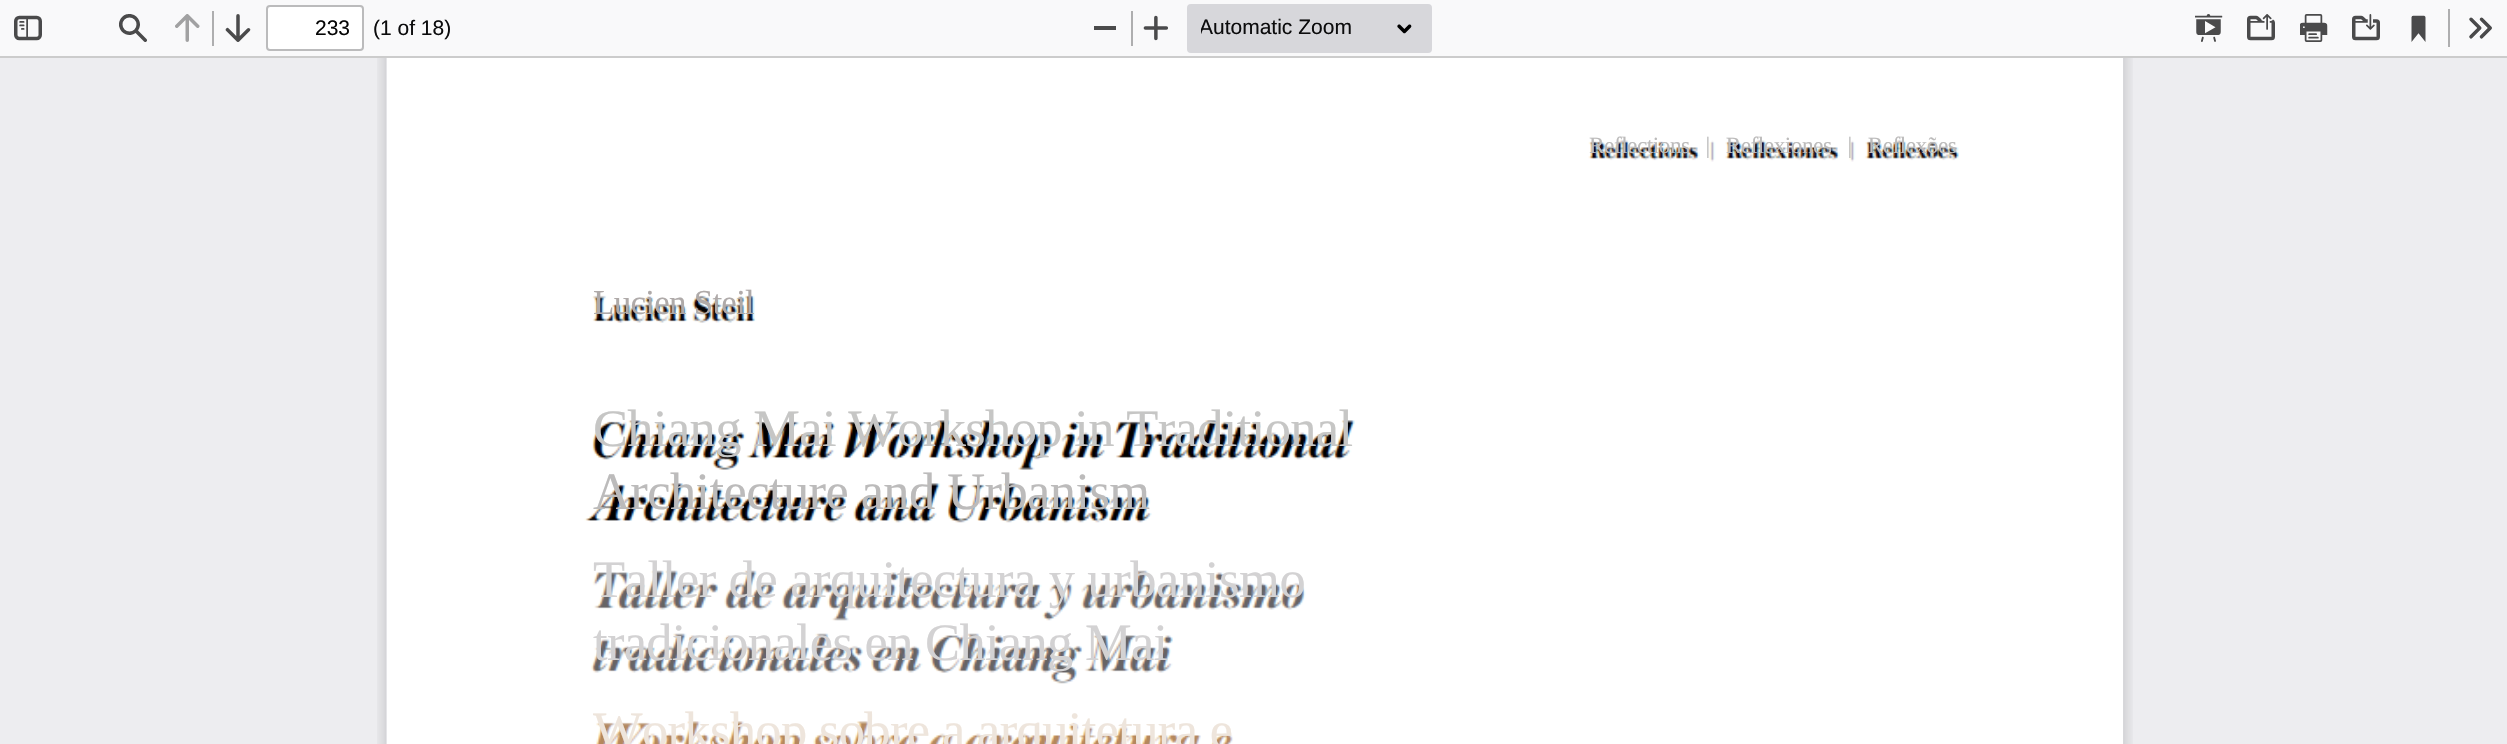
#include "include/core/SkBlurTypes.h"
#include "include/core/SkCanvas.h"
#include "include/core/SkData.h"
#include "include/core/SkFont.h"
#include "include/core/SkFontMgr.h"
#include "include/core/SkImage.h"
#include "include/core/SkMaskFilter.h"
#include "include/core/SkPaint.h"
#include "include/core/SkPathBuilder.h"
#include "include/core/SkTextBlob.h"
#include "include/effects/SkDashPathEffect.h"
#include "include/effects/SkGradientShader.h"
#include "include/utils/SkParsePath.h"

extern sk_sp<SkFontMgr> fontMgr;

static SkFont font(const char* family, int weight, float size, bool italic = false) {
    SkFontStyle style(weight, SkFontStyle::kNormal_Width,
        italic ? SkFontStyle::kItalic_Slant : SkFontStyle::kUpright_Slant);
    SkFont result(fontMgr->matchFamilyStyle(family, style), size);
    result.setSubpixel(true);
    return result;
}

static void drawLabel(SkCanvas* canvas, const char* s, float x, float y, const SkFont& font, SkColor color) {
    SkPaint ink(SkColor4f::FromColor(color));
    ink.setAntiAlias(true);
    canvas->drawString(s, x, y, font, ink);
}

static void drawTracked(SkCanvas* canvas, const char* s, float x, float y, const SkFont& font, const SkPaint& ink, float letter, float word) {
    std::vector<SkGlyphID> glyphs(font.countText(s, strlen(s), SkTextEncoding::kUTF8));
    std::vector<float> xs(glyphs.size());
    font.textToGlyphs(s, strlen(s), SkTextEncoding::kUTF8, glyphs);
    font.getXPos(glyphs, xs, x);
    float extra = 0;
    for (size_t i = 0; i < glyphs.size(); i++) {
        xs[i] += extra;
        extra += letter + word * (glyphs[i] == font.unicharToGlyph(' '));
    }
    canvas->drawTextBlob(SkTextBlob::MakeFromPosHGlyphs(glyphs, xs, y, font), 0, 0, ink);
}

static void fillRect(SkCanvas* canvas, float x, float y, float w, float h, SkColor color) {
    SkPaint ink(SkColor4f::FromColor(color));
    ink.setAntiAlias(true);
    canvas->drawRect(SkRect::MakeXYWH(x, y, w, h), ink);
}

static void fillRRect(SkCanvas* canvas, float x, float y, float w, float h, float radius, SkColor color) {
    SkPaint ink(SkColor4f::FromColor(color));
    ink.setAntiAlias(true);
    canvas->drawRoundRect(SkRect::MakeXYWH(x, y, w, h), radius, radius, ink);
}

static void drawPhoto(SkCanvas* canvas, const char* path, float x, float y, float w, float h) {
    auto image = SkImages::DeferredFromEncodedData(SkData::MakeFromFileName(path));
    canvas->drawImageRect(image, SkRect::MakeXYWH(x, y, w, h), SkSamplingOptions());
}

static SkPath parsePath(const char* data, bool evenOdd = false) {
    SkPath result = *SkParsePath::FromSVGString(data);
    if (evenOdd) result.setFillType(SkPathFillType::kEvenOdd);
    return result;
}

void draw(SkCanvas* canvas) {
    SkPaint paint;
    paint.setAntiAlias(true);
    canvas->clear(0xFFEDEDF0);
    paint.setColor(0xFFCCCCCC);
    canvas->drawPath(parsePath("M0 56V58H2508V2V56Z"), paint);
    fillRect(canvas, 0, 0, 2507, 56, 0xFFF9F9FA);
    drawPhoto(canvas, "assets/img1.png", 14, 15, 28, 26);
    drawPhoto(canvas, "assets/img2.png", 119, 14, 28, 28);
    drawPhoto(canvas, "assets/img3.png", 175, 14, 25, 28);
    fillRect(canvas, 212, 11, 2, 35, 0xFFAEAEAF);
    drawPhoto(canvas, "assets/img4.png", 225, 14, 26, 28);
    paint.setColor(0xFFFFFFFF);
    canvas->drawRoundRect(SkRect::MakeXYWH(267, 6, 96, 44), 3, 3, paint);
    paint.setStroke(true);
    paint.setStrokeWidth(2);
    paint.setColor(0xFFBBBBBC);
    canvas->drawRoundRect(SkRect::MakeXYWH(267, 6, 96, 44), 3, 3, paint);
    SkFont font1 = font("Liberation Sans", 400, 21);
    drawLabel(canvas, "233", 315, 35, font1, 0xFF060606);
    drawLabel(canvas, "(1 of 18)", 373, 35, font1, 0xFF0C0C0D);
    fillRect(canvas, 1094, 26, 22, 4, 0xFF4B4B4B);
    fillRect(canvas, 1131, 11, 2, 35, 0xFFAEAEAF);
    drawPhoto(canvas, "assets/img5.png", 1143, 15, 25, 26);
    fillRRect(canvas, 1187, 4, 245, 49, 4, 0xFFD7D7DB);
    canvas->save();
    canvas->clipRect(SkRect::MakeXYWH(1201, 14, 241, 28));
    drawLabel(canvas, "Automatic Zoom", 1199, 34, font1, 0xFF0C0C0D);
    canvas->restore();
    drawPhoto(canvas, "assets/img6.png", 1397, 24, 15, 10);
    drawPhoto(canvas, "assets/img7.png", 2195, 14, 28, 28);
    drawPhoto(canvas, "assets/img8.png", 2247, 14, 28, 27);
    drawPhoto(canvas, "assets/img9.png", 2300, 14, 28, 28);
    drawPhoto(canvas, "assets/img10.png", 2352, 14, 28, 27);
    drawPhoto(canvas, "assets/img11.png", 2411, 15, 15, 27);
    fillRect(canvas, 2448, 9, 2, 38, 0xFFAEAEAF);
    drawPhoto(canvas, "assets/img12.png", 2469, 17, 23, 22);
    drawPhoto(canvas, "assets/img13.png", 377, 58, 1756, 686);
    drawPhoto(canvas, "assets/img14.png", 386, 58, 1737, 686);
    SkFont font2 = font("Liberation Serif", 400, 23.3f);
    paint.setStroke(false);
    paint.setColor(0xFFBCBBBB);
    drawTracked(canvas, "Reflections   |   Reflexiones   |   Reflexões", 1589, 153, font2, paint, -0.5f, 0);
    SkFont font3 = font("Liberation Serif", 400, 35);
    paint.setColor(0xFFAFAAA9);
    drawTracked(canvas, "Lucien Steil", 593, 314, font3, paint, -0.75f, 0);
    SkFont font4 = font("Liberation Serif", 400, 52.5f);
    paint.setColor(0xFFC6C6C5);
    drawTracked(canvas, "Chiang Mai Workshop in Traditional", 593, 446, font4, paint, -0.65f, 0);
    paint.setColor(0xFFBCBBBB);
    drawTracked(canvas, "Architecture and Urbanism", 593, 509, font4, paint, -0.6f, 0);
    paint.setColor(0xFFD3D2D3);
    drawTracked(canvas, "Taller de arquitectura y urbanismo", 593, 597, font4, paint, -0.4f, 0);
    drawTracked(canvas, "tradicionales en Chiang Mai", 593, 660, font4, paint, -0.7f, 0);
    paint.setColor(0xFFEEE5DC);
    drawTracked(canvas, "Workshop sobre a arquitetura e", 593, 748, font4, paint, -0.65f, 0);
}
